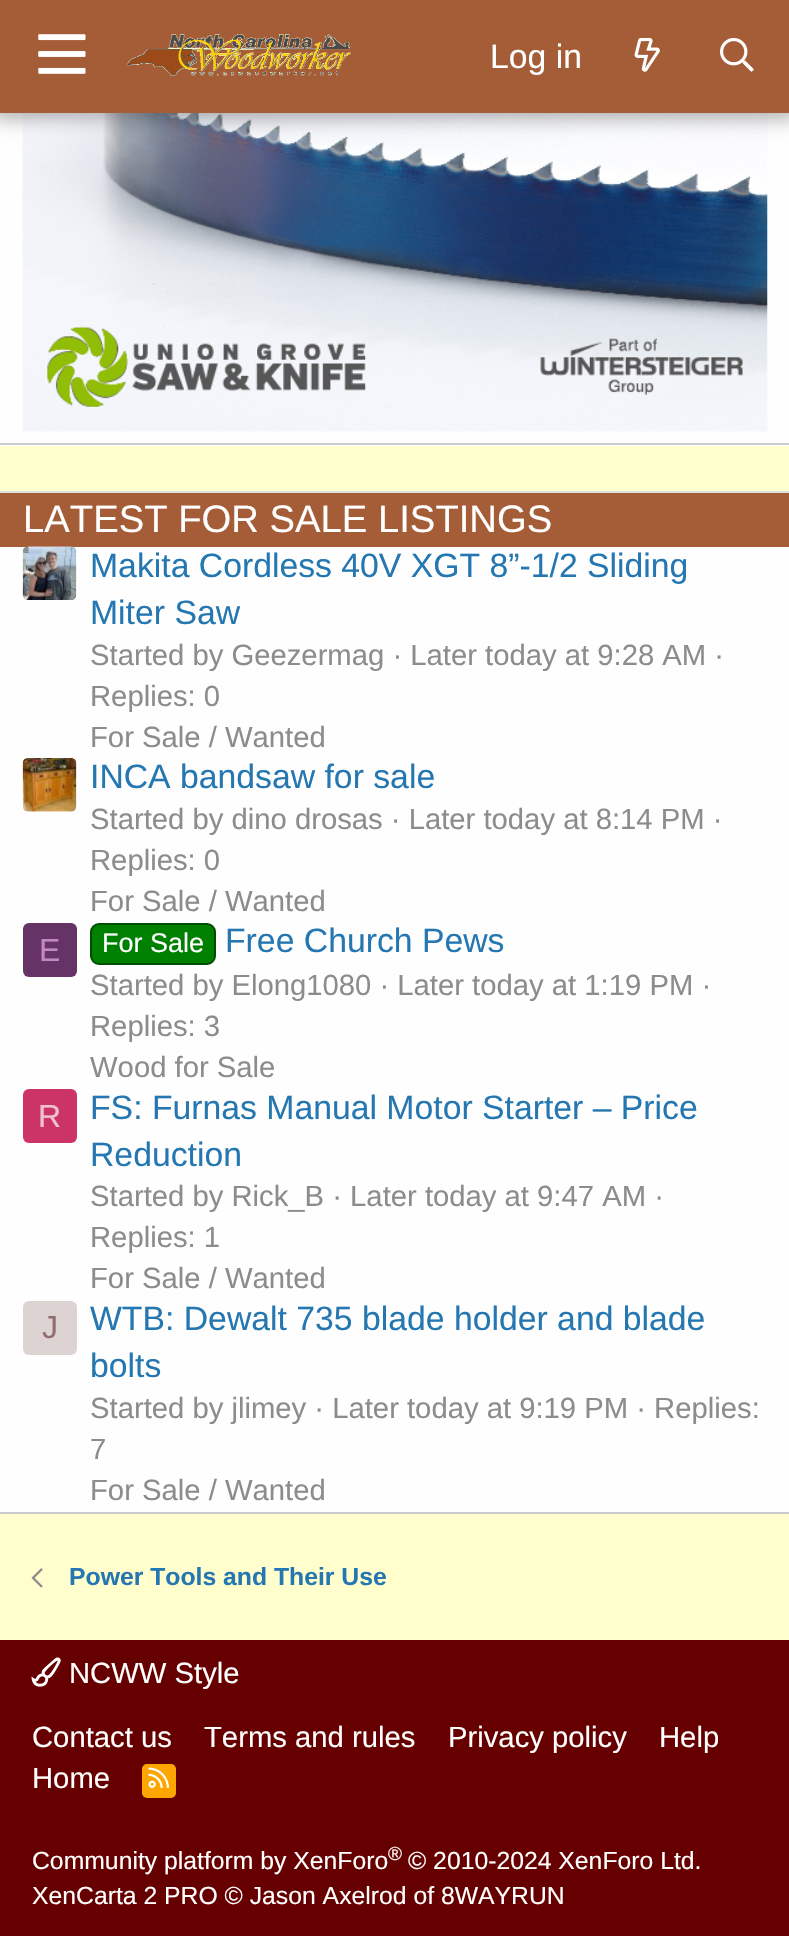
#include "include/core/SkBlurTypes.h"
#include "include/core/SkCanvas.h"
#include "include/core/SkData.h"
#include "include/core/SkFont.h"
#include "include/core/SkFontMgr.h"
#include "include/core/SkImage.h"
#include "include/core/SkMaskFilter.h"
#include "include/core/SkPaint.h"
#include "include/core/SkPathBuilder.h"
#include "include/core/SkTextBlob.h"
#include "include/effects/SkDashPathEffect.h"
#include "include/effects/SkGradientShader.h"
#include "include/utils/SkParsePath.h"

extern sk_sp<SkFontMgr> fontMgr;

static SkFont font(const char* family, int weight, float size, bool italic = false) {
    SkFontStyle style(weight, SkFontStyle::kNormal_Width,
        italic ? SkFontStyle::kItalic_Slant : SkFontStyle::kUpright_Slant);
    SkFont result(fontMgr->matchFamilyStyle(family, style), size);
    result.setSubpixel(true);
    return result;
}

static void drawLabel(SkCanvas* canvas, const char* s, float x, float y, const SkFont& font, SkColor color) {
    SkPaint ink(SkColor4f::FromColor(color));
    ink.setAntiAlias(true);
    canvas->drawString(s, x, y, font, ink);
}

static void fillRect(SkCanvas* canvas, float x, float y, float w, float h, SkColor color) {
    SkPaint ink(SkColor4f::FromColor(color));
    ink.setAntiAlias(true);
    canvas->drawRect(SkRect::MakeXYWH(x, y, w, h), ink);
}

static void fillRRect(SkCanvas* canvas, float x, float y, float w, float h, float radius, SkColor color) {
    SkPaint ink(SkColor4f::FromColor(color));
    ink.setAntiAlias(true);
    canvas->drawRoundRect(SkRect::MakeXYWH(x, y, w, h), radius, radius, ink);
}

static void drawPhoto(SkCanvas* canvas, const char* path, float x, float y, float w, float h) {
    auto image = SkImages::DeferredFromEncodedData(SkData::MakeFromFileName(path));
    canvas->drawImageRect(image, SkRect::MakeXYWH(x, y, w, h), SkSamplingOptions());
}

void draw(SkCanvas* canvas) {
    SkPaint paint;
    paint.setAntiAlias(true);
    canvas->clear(0xFFFFFECC);
    fillRect(canvas, 0, 113, 789, 333, 0xFFFEFEFE);
    drawPhoto(canvas, "assets/img5.png", 22, 113, 746, 319);
    paint.setColor(0x4D000000);
    paint.setMaskFilter(SkMaskFilter::MakeBlur(kNormal_SkBlurStyle, 9));
    canvas->drawRect(SkRect::MakeXYWH(-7, -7, 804, 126), paint);
    paint.setMaskFilter(nullptr);
    fillRect(canvas, 0, 0, 789, 113, 0xFFA45D36);
    drawPhoto(canvas, "assets/img1.png", 38, 34, 48, 40);
    drawPhoto(canvas, "assets/img2.png", 127, 34, 224, 42);
    SkFont font1 = font("Liberation Sans", 400, 33.75f);
    drawLabel(canvas, "Log in", 490, 68, font1, 0xFFFFFFFF);
    drawPhoto(canvas, "assets/img3.png", 634, 38, 26, 34);
    drawPhoto(canvas, "assets/img4.png", 720, 38, 34, 34);
    fillRect(canvas, 0, 443, 789, 2, 0xFFCBCBCB);
    fillRect(canvas, 0, 547, 789, 965, 0xFFFEFEFE);
    fillRect(canvas, 0, 491, 789, 2, 0xFFDFDFDF);
    fillRect(canvas, 0, 1512, 789, 2, 0xFFCBCBCB);
    fillRect(canvas, 0, 493, 789, 54, 0xFFA45D36);
    SkFont font2 = font("Liberation Sans", 400, 38.25f);
    drawLabel(canvas, "LATEST FOR SALE LISTINGS", 23, 532, font2, 0xFFFFFFFF);
    drawPhoto(canvas, "assets/img6.png", 22, 546, 55, 54);
    drawLabel(canvas, "Makita Cordless 40V XGT 8”-1/2 Sliding", 90, 577, font1, 0xFF2577B1);
    drawLabel(canvas, "Miter Saw", 90, 624, font1, 0xFF2577B1);
    SkFont font3 = font("Liberation Sans", 400, 29.25f);
    drawLabel(canvas, "Started by Geezermag · Later today at 9:28 AM ·", 90, 665, font3, 0xFF8C8C8C);
    drawLabel(canvas, "Replies: 0", 90, 706, font3, 0xFF8C8C8C);
    drawLabel(canvas, "For Sale / Wanted", 90, 747, font3, 0xFF8C8C8C);
    drawPhoto(canvas, "assets/img7.png", 22, 758, 55, 54);
    drawLabel(canvas, "INCA bandsaw for sale", 90, 788, font1, 0xFF2577B1);
    drawLabel(canvas, "Started by dino drosas · Later today at 8:14 PM ·", 90, 829, font3, 0xFF8C8C8C);
    drawLabel(canvas, "Replies: 0", 90, 870, font3, 0xFF8C8C8C);
    drawLabel(canvas, "For Sale / Wanted", 90, 911, font3, 0xFF8C8C8C);
    fillRRect(canvas, 23, 923, 54, 54, 6, 0xFF663366);
    SkFont font4 = font("Liberation Sans", 400, 32);
    drawLabel(canvas, "E", 39, 961, font4, 0xFFC388C3);
    paint.setColor(0xFF008000);
    canvas->drawRoundRect(SkRect::MakeXYWH(91, 924, 124, 40), 8, 8, paint);
    paint.setStroke(true);
    paint.setStrokeWidth(2);
    paint.setColor(0xFF004D00);
    canvas->drawRoundRect(SkRect::MakeXYWH(91, 924, 124, 40), 8, 8, paint);
    SkFont font5 = font("Liberation Sans", 400, 27);
    drawLabel(canvas, "For Sale", 102, 952, font5, 0xFFFFFFFF);
    drawLabel(canvas, "Free Church Pews", 225, 952, font1, 0xFF2577B1);
    drawLabel(canvas, "Started by Elong1080 · Later today at 1:19 PM ·", 90, 995, font3, 0xFF8C8C8C);
    drawLabel(canvas, "Replies: 3", 90, 1036, font3, 0xFF8C8C8C);
    drawLabel(canvas, "Wood for Sale", 90, 1077, font3, 0xFF8C8C8C);
    fillRRect(canvas, 23, 1089, 54, 54, 6, 0xFFCC3366);
    drawLabel(canvas, "R", 38, 1127, font4, 0xFFF0C2D1);
    drawLabel(canvas, "FS: Furnas Manual Motor Starter – Price", 90, 1119, font1, 0xFF2577B1);
    drawLabel(canvas, "Reduction", 90, 1166, font1, 0xFF2577B1);
    drawLabel(canvas, "Started by Rick_B · Later today at 9:47 AM ·", 90, 1206, font3, 0xFF8C8C8C);
    drawLabel(canvas, "Replies: 1", 90, 1247, font3, 0xFF8C8C8C);
    drawLabel(canvas, "For Sale / Wanted", 90, 1288, font3, 0xFF8C8C8C);
    fillRRect(canvas, 23, 1301, 54, 54, 6, 0xFFDED3D3);
    drawLabel(canvas, "J", 42, 1338, font4, 0xFF936C6C);
    drawLabel(canvas, "WTB: Dewalt 735 blade holder and blade", 90, 1330, font1, 0xFF2577B1);
    drawLabel(canvas, "bolts", 90, 1377, font1, 0xFF2577B1);
    drawLabel(canvas, "Started by jlimey · Later today at 9:19 PM · Replies:", 90, 1418, font3, 0xFF8C8C8C);
    drawLabel(canvas, "7", 90, 1459, font3, 0xFF8C8C8C);
    drawLabel(canvas, "For Sale / Wanted", 90, 1500, font3, 0xFF8C8C8C);
    drawPhoto(canvas, "assets/img8.png", 31, 1568, 12, 20);
    SkFont font6 = font("Liberation Sans", 700, 24.75f);
    drawLabel(canvas, "Power Tools and Their Use", 69, 1585, font6, 0xFF2577B1);
    fillRect(canvas, 0, 1640, 789, 296, 0xFF660000);
    drawPhoto(canvas, "assets/img9.png", 31, 1657, 30, 30);
    drawLabel(canvas, "NCWW Style", 69, 1683, font3, 0xFFFFFFFF);
    drawLabel(canvas, "Contact us", 32, 1747, font3, 0xFFFFFFFF);
    drawLabel(canvas, "Terms and rules", 204, 1747, font3, 0xFFFFFFFF);
    drawLabel(canvas, "Privacy policy", 448, 1747, font3, 0xFFFFFFFF);
    drawLabel(canvas, "Help", 659, 1747, font3, 0xFFFFFFFF);
    drawLabel(canvas, "Home", 32, 1788, font3, 0xFFFFFFFF);
    fillRRect(canvas, 142, 1764, 34, 34, 5, 0xFFFFA500);
    drawPhoto(canvas, "assets/img10.png", 148, 1767, 21, 21);
    SkFont font7 = font("Liberation Sans", 400, 24.75f);
    drawLabel(canvas, "Community platform by XenForo", 32, 1869, font7, 0xFFFFFFFF);
    SkFont font8 = font("Liberation Sans", 400, 19);
    drawLabel(canvas, "®", 388, 1860, font8, 0xFFFFFFFF);
    drawLabel(canvas, "© 2010-2024 XenForo Ltd.", 408, 1869, font7, 0xFFFFFFFF);
    drawLabel(canvas, "XenCarta 2 PRO © Jason Axelrod of 8WAYRUN", 32, 1904, font7, 0xFFFFFFFF);
}
